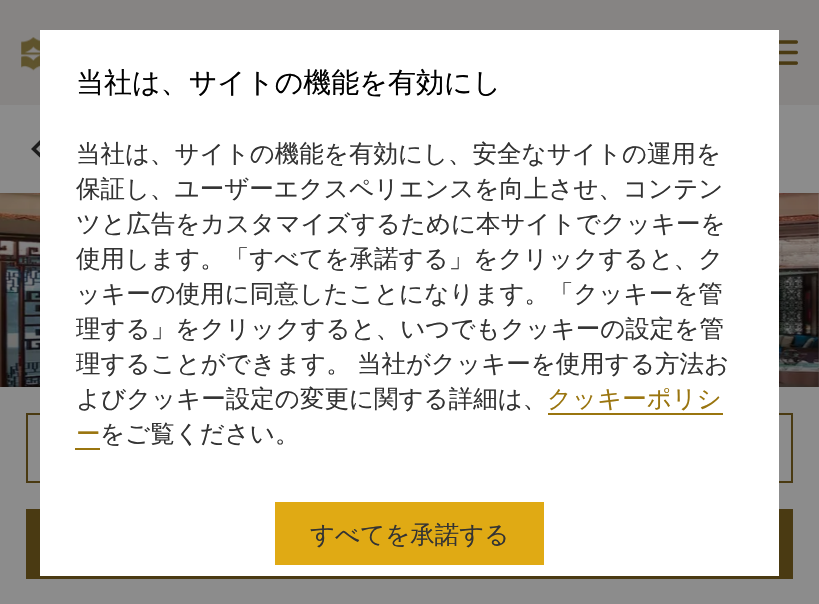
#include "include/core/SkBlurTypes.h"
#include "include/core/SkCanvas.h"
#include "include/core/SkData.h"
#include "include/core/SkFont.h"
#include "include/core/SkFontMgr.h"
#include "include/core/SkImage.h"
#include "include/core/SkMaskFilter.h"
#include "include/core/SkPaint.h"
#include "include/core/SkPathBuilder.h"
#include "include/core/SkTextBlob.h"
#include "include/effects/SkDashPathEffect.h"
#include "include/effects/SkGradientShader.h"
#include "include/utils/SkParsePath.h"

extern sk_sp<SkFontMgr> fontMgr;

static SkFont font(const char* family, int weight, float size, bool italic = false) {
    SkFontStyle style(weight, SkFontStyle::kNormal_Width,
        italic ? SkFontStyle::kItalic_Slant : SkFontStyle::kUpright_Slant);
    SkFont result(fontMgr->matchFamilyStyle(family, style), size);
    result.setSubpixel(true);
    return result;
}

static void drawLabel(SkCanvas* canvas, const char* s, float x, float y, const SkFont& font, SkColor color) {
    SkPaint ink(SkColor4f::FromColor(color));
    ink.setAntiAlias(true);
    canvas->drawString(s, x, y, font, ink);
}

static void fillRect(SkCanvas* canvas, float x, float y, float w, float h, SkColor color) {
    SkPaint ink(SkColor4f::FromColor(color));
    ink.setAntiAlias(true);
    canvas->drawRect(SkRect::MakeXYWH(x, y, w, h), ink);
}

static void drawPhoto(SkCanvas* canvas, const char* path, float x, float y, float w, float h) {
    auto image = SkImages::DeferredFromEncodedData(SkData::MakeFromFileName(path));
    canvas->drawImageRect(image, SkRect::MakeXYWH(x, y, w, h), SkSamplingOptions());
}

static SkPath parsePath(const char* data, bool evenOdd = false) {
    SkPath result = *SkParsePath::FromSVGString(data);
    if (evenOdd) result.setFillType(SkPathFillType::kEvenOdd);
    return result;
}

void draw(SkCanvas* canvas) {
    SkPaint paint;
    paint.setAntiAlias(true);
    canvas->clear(0xFF8C8C8C);
    fillRect(canvas, 0, 0, 819, 105, 0xFF868483);
    drawPhoto(canvas, "assets/img1.png", 21, 37, 19, 34);
    drawPhoto(canvas, "assets/img2.png", 779, 40, 19, 25);
    paint.setColor(0xFF1C1C1C);
    canvas->drawPath(parsePath("M43.5 161L46 158.5L36 149L46 139L43.5 136.5L31 149Z"), paint);
    drawPhoto(canvas, "assets/img3.png", 0, 193, 819, 194);
    {
        const SkColor colors[] = {0x00000000, 0x80000000};
        const float stops[] = {0, 1};
        const SkPoint ends[] = {{410, 192}, {410, 585}};
        paint.setShader(SkGradientShader::MakeLinear(ends, colors, stops, 2, SkTileMode::kClamp));
        paint.setAlpha(255);
    }
    canvas->drawRect(SkRect::MakeXYWH(0, 209, 819, 178), paint);
    paint.setStroke(true);
    paint.setStrokeWidth(2);
    paint.setShader(nullptr);
    paint.setColor(0xFF4A3A12);
    canvas->drawRect(SkRect::MakeXYWH(27, 414, 765, 68), paint);
    fillRect(canvas, 26, 509, 767, 70, 0xFF4A3A12);
    fillRect(canvas, 40, 30, 739, 546, 0xFFFFFFFF);
    SkFont font1 = font("WenQuanYi Zen Hei", 500, 28);
    drawLabel(canvas, "当社は、サイトの機能を有効にし", 76, 92, font1, 0xFF000000);
    SkFont font2 = font("WenQuanYi Zen Hei", 500, 24.5f);
    drawLabel(canvas, "当社は、サイトの機能を有効にし、安全なサイトの運用を", 76, 162, font2, 0xFF333333);
    drawLabel(canvas, "保証し、ユーザーエクスペリエンスを向上させ、コンテン", 76, 197, font2, 0xFF333333);
    drawLabel(canvas, "ツと広告をカスタマイズするために本サイトでクッキーを", 76, 232, font2, 0xFF333333);
    drawLabel(canvas, "使用します。「すべてを承諾する」をクリックすると、ク", 76, 267, font2, 0xFF333333);
    drawLabel(canvas, "ッキーの使用に同意したことになります。「クッキーを管", 76, 302, font2, 0xFF333333);
    drawLabel(canvas, "理する」をクリックすると、いつでもクッキーの設定を管", 76, 337, font2, 0xFF333333);
    drawLabel(canvas, "理することができます。", 76, 372, font2, 0xFF333333);
    drawLabel(canvas, "当社がクッキーを使用する方法お", 357, 372, font2, 0xFF333333);
    drawLabel(canvas, "よびクッキー設定の変更に関する詳細は、", 76, 407, font2, 0xFF333333);
    drawLabel(canvas, "クッキーポリシ", 547, 407, font2, 0xFF9A750F);
    fillRect(canvas, 548, 413, 175, 2, 0xFF9A750F);
    drawLabel(canvas, "ー", 76, 442, font2, 0xFF9A750F);
    fillRect(canvas, 75, 448, 25, 2, 0xFF9A750F);
    drawLabel(canvas, "をご覧ください。", 100, 442, font2, 0xFF333333);
    fillRect(canvas, 275, 502, 269, 63, 0xFFE0AA14);
    drawLabel(canvas, "すべてを承諾する", 310, 543, font2, 0xFF333333);
}
